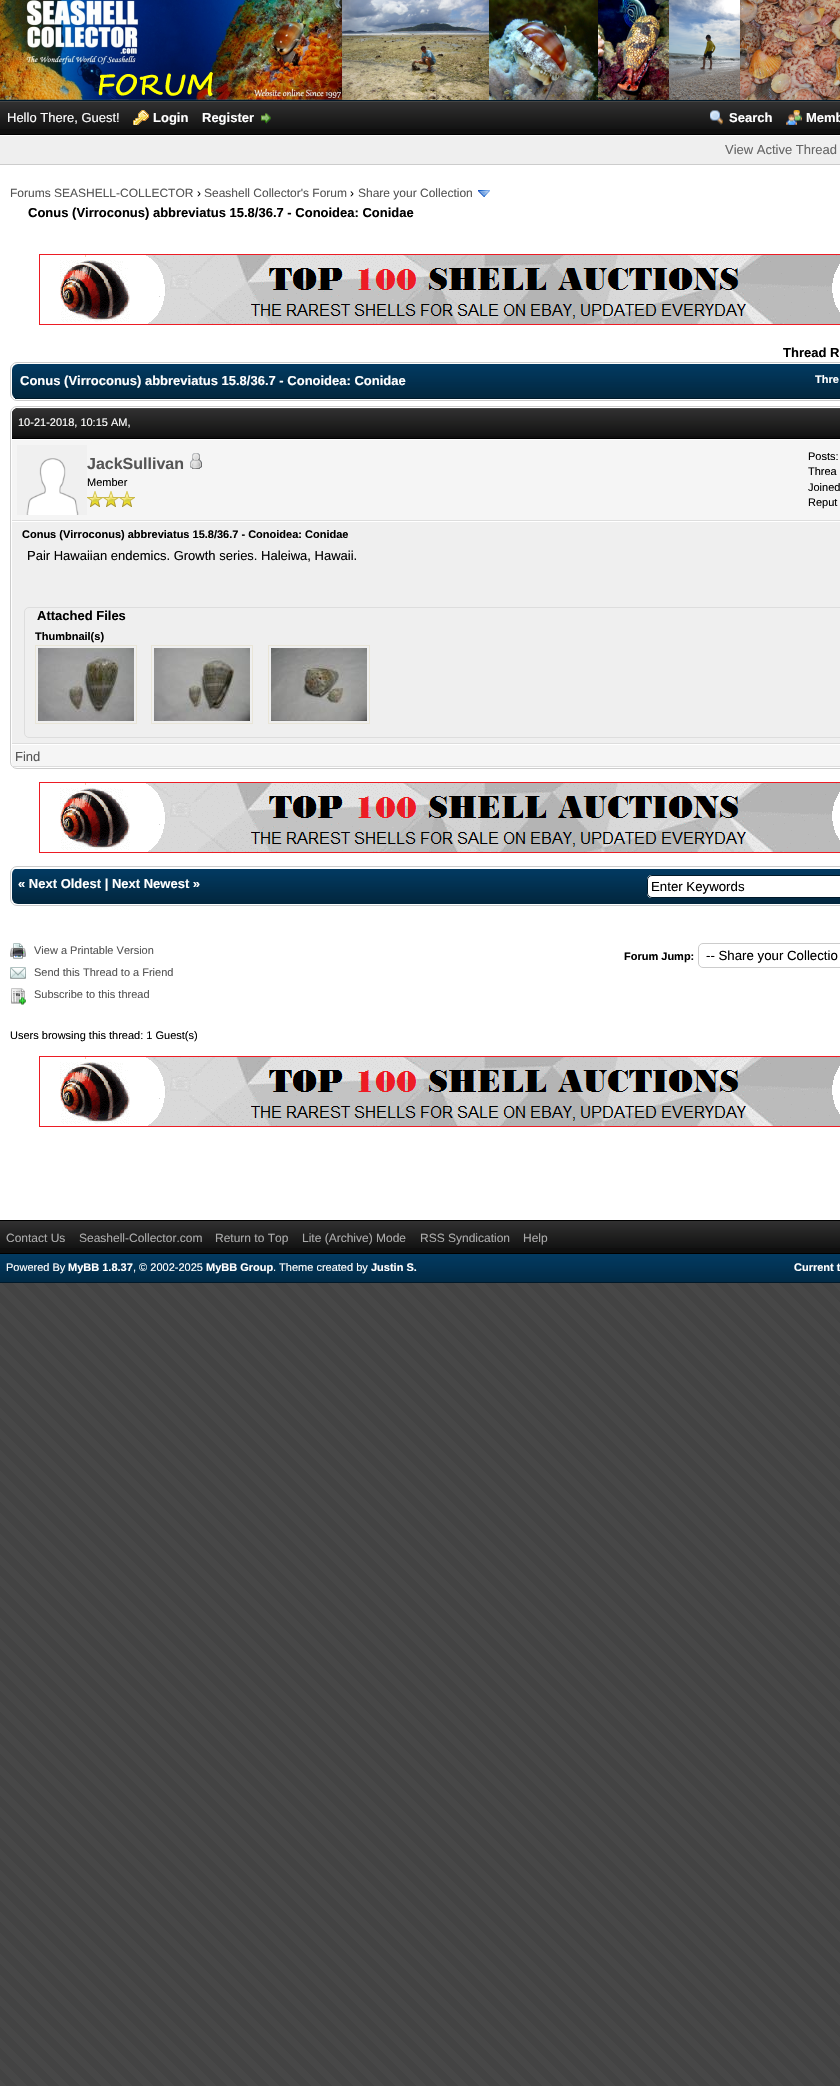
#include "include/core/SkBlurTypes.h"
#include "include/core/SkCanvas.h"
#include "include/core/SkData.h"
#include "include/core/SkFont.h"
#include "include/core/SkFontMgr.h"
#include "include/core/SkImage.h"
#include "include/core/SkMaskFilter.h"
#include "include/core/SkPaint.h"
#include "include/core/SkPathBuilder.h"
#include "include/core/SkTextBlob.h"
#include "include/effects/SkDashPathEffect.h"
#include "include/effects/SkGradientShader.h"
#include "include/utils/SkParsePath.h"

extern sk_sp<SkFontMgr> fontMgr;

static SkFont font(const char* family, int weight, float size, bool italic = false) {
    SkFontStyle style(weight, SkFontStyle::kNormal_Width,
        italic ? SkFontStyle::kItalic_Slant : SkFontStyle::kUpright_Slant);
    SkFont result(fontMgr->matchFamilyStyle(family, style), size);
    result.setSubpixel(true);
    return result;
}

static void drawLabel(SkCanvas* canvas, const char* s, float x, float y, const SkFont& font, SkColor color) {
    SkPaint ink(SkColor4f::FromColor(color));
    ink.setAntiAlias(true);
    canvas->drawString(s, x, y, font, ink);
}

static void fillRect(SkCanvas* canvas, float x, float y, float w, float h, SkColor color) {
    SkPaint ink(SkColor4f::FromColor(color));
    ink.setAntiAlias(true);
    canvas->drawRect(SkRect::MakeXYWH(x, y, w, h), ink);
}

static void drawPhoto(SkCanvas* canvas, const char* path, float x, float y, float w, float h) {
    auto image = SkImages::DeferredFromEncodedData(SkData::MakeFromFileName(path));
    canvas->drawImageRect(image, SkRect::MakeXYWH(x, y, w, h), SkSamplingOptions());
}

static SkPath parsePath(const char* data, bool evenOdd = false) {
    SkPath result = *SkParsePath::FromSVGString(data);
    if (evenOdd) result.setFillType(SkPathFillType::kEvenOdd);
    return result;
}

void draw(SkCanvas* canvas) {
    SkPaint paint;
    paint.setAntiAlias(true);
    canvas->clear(0xFFFFFFFF);
    drawPhoto(canvas, "assets/img1.png", 0, 1283, 840, 803);
    fillRect(canvas, 0, 100, 840, 1, 0xFF011929);
    drawPhoto(canvas, "assets/img2.png", 0, 0, 840, 100);
    fillRect(canvas, 0, 129, 840, 5, 0xFF0F0F0F);
    drawPhoto(canvas, "assets/img3.png", 0, 102, 840, 27);
    fillRect(canvas, 0, 101, 840, 1, 0xFF444444);
    fillRect(canvas, 0, 134, 840, 1, 0xFF000000);
    SkFont font1 = font("Liberation Sans", 400, 13);
    drawLabel(canvas, "Hello There, Guest!", 7, 122, font1, 0xFFFFFFFF);
    drawPhoto(canvas, "assets/img4.png", 133, 110, 16, 15);
    SkFont font2 = font("Liberation Sans", 700, 13);
    drawLabel(canvas, "Login", 153, 122, font2, 0xFFFFFFFF);
    drawLabel(canvas, "Register", 202, 122, font2, 0xFFFFFFFF);
    drawPhoto(canvas, "assets/img5.png", 261, 113, 10, 11);
    drawPhoto(canvas, "assets/img6.png", 710, 110, 13, 15);
    drawLabel(canvas, "Search", 729, 122, font2, 0xFFFFFFFF);
    drawPhoto(canvas, "assets/img7.png", 786, 110, 16, 15);
    drawLabel(canvas, "Memb", 806, 122, font2, 0xFFFFFFFF);
    fillRect(canvas, 0, 136, 840, 28, 0xFFEFEFEF);
    fillRect(canvas, 0, 164, 840, 1, 0xFFCCCCCC);
    drawLabel(canvas, "View Active Thread", 725, 154, font1, 0xFF666666);
    fillRect(canvas, 0, 1220, 840, 1, 0xFF000000);
    SkFont font3 = font("Liberation Sans", 400, 12);
    drawLabel(canvas, "Forums SEASHELL-COLLECTOR", 10, 197, font3, 0xFF555555);
    drawLabel(canvas, "›", 197, 197, font3, 0xFF000000);
    drawLabel(canvas, "Seashell Collector's Forum", 204, 197, font3, 0xFF555555);
    drawLabel(canvas, "›", 350, 197, font3, 0xFF000000);
    drawLabel(canvas, "Share your Collection", 358, 197, font3, 0xFF555555);
    drawPhoto(canvas, "assets/img8.png", 478, 190, 12, 7);
    drawLabel(canvas, "Conus (Virroconus) abbreviatus 15.8/36.7 - Conoidea: Conidae", 28, 217, font2, 0xFF000000);
    drawPhoto(canvas, "assets/img9.png", 39, 254, 801, 71);
    drawLabel(canvas, "Thread R", 783, 357, font2, 0xFF000000);
    paint.setStroke(true);
    paint.setStrokeWidth(1);
    paint.setColor(0xFFCCCCCC);
    canvas->drawRoundRect(SkRect::MakeXYWH(10.5f, 362.5f, 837, 38), 6.5f, 6.5f, paint);
    drawPhoto(canvas, "assets/img10.png", 12, 364, 828, 34);
    fillRect(canvas, 15, 398, 825, 1, 0xFF011929);
    drawLabel(canvas, "Conus (Virroconus) abbreviatus 15.8/36.7 - Conoidea: Conidae", 20, 385, font2, 0xFFFFFFFF);
    SkFont font4 = font("Liberation Sans", 700, 11);
    drawLabel(canvas, "Thre", 815, 383, font4, 0xFFFFFFFF);
    canvas->drawRoundRect(SkRect::MakeXYWH(10.5f, 406.5f, 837, 362), 6.5f, 6.5f, paint);
    paint.setStroke(false);
    paint.setColor(0xFF0F0F0F);
    canvas->drawPath(parsePath("M18 408H840V439H12V414C12 410.5 14.5 408 18 408Z"), paint);
    drawPhoto(canvas, "assets/img11.png", 12, 409, 828, 27);
    paint.setColor(0xFF444444);
    canvas->drawPath(parsePath("M18 408C15 408 12 411 12 414C12 411 15 409 18 409H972C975 409 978 411 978 414C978 411 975 408 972 408Z"), paint);
    fillRect(canvas, 12, 438, 828, 1, 0xFF000000);
    SkFont font5 = font("Liberation Sans", 400, 11);
    drawLabel(canvas, "10-21-2018, 10:15 AM,", 18, 426, font5, 0xFFFFFFFF);
    fillRect(canvas, 12, 440, 828, 80, 0xFFF5F5F5);
    fillRect(canvas, 12, 520, 828, 1, 0xFFDDDDDD);
    drawPhoto(canvas, "assets/img12.png", 17, 445, 70, 70);
    SkFont font6 = font("Liberation Sans", 700, 16);
    drawLabel(canvas, "JackSullivan", 87, 469, font6, 0xFF555555);
    drawPhoto(canvas, "assets/img13.png", 190, 453, 12, 16);
    drawLabel(canvas, "Member", 87, 486, font5, 0xFF000000);
    drawPhoto(canvas, "assets/img14.png", 87, 491, 16, 16);
    drawPhoto(canvas, "assets/img14.png", 103, 491, 16, 16);
    drawPhoto(canvas, "assets/img14.png", 119, 491, 16, 16);
    drawLabel(canvas, "Posts:", 808, 460, font5, 0xFF000000);
    drawLabel(canvas, "Threa", 808, 475, font5, 0xFF000000);
    drawLabel(canvas, "Joined", 808, 491, font5, 0xFF000000);
    drawLabel(canvas, "Reput", 808, 506, font5, 0xFF000000);
    fillRect(canvas, 12, 522, 828, 221, 0xFFEFEFEF);
    fillRect(canvas, 12, 743, 828, 1, 0xFFDDDDDD);
    drawLabel(canvas, "Conus (Virroconus) abbreviatus 15.8/36.7 - Conoidea: Conidae", 22, 538, font4, 0xFF000000);
    drawLabel(canvas, "Pair Hawaiian endemics. Growth series. Haleiwa, Hawaii.", 27, 560, font1, 0xFF000000);
    paint.setStroke(true);
    paint.setColor(0xFFDDDDDD);
    canvas->drawRoundRect(SkRect::MakeXYWH(24.5f, 607.5f, 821, 130), 4.5f, 4.5f, paint);
    drawLabel(canvas, "Attached Files", 37, 620, font2, 0xFF000000);
    drawLabel(canvas, "Thumbnail(s)", 35, 640, font4, 0xFF000000);
    paint.setColor(0xFFE9E5D7);
    canvas->drawRect(SkRect::MakeXYWH(35.5f, 645.5f, 101, 78), paint);
    canvas->drawRect(SkRect::MakeXYWH(151.5f, 645.5f, 101, 78), paint);
    canvas->drawRect(SkRect::MakeXYWH(268.5f, 645.5f, 101, 78), paint);
    drawPhoto(canvas, "assets/img15.png", 38, 648, 96, 73);
    drawPhoto(canvas, "assets/img16.png", 154, 648, 96, 73);
    drawPhoto(canvas, "assets/img17.png", 271, 648, 96, 73);
    fillRect(canvas, 12, 745, 828, 21, 0xFFF5F5F5);
    fillRect(canvas, 12, 766, 828, 1, 0xFFDDDDDD);
    drawLabel(canvas, "Find", 15, 761, font1, 0xFF555555);
    drawPhoto(canvas, "assets/img9.png", 39, 782, 801, 71);
    paint.setColor(0xFFCCCCCC);
    canvas->drawRoundRect(SkRect::MakeXYWH(10.5f, 866.5f, 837, 39), 6.5f, 6.5f, paint);
    drawPhoto(canvas, "assets/img18.png", 12, 869, 828, 35);
    drawLabel(canvas, "« Next Oldest | Next Newest »", 18, 888, font2, 0xFFFFFFFF);
    paint.setStroke(false);
    paint.setColor(0xFFFFFFFF);
    canvas->drawPath(parsePath("M652 875H840V898H652C649 898 647 896 647 893V880C647 877 649 875 652 875Z"), paint);
    paint.setStroke(true);
    paint.setColor(0xFF011929);
    canvas->drawRoundRect(SkRect::MakeXYWH(647.5f, 875.5f, 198, 22), 4.5f, 4.5f, paint);
    SkFont font7 = font("Liberation Sans", 400, 13.25f);
    drawLabel(canvas, "Enter Keywords", 651, 891, font7, 0xFF000000);
    drawPhoto(canvas, "assets/img19.png", 10, 943, 16, 16);
    drawLabel(canvas, "View a Printable Version", 34, 954, font5, 0xFF555555);
    drawPhoto(canvas, "assets/img20.png", 10, 967, 16, 12);
    drawLabel(canvas, "Send this Thread to a Friend", 34, 976, font5, 0xFF555555);
    drawPhoto(canvas, "assets/img21.png", 11, 988, 15, 17);
    drawLabel(canvas, "Subscribe to this thread", 34, 998, font5, 0xFF555555);
    drawLabel(canvas, "Forum Jump:", 624, 960, font4, 0xFF000000);
    paint.setColor(0xFFCCCCCC);
    canvas->drawRoundRect(SkRect::MakeXYWH(698.5f, 943.5f, 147, 24), 4.5f, 4.5f, paint);
    drawLabel(canvas, "-- Share your Collectio", 706, 960, font7, 0xFF000000);
    drawLabel(canvas, "Users browsing this thread: 1 Guest(s)", 10, 1039, font5, 0xFF000000);
    drawPhoto(canvas, "assets/img9.png", 39, 1056, 801, 71);
    fillRect(canvas, 0, 1248, 840, 5, 0xFF0F0F0F);
    drawPhoto(canvas, "assets/img3.png", 0, 1221, 840, 27);
    drawLabel(canvas, "Contact Us", 6, 1242, font3, 0xFFAAAAAA);
    drawLabel(canvas, "Seashell-Collector.com", 79, 1242, font3, 0xFFAAAAAA);
    drawLabel(canvas, "Return to Top", 215, 1242, font3, 0xFFAAAAAA);
    drawLabel(canvas, "Lite (Archive) Mode", 302, 1242, font3, 0xFFAAAAAA);
    drawLabel(canvas, "RSS Syndication", 420, 1242, font3, 0xFFAAAAAA);
    drawLabel(canvas, "Help", 523, 1242, font3, 0xFFAAAAAA);
    drawPhoto(canvas, "assets/img22.png", 0, 1254, 840, 28);
    fillRect(canvas, 0, 1253, 840, 1, 0xFF000000);
    fillRect(canvas, 0, 1282, 840, 1, 0xFF011929);
    drawLabel(canvas, "Powered By", 6, 1271, font5, 0xFFFFFFFF);
    drawLabel(canvas, "MyBB 1.8.37", 68, 1271, font4, 0xFFFFFFFF);
    drawLabel(canvas, ", © 2002-2025", 133, 1271, font5, 0xFFFFFFFF);
    drawLabel(canvas, "MyBB Group", 206, 1271, font4, 0xFFFFFFFF);
    drawLabel(canvas, ". Theme created by", 273, 1271, font5, 0xFFFFFFFF);
    drawLabel(canvas, "Justin S.", 371, 1271, font4, 0xFFFFFFFF);
    drawLabel(canvas, "Current t", 794, 1271, font4, 0xFFFFFFFF);
}
